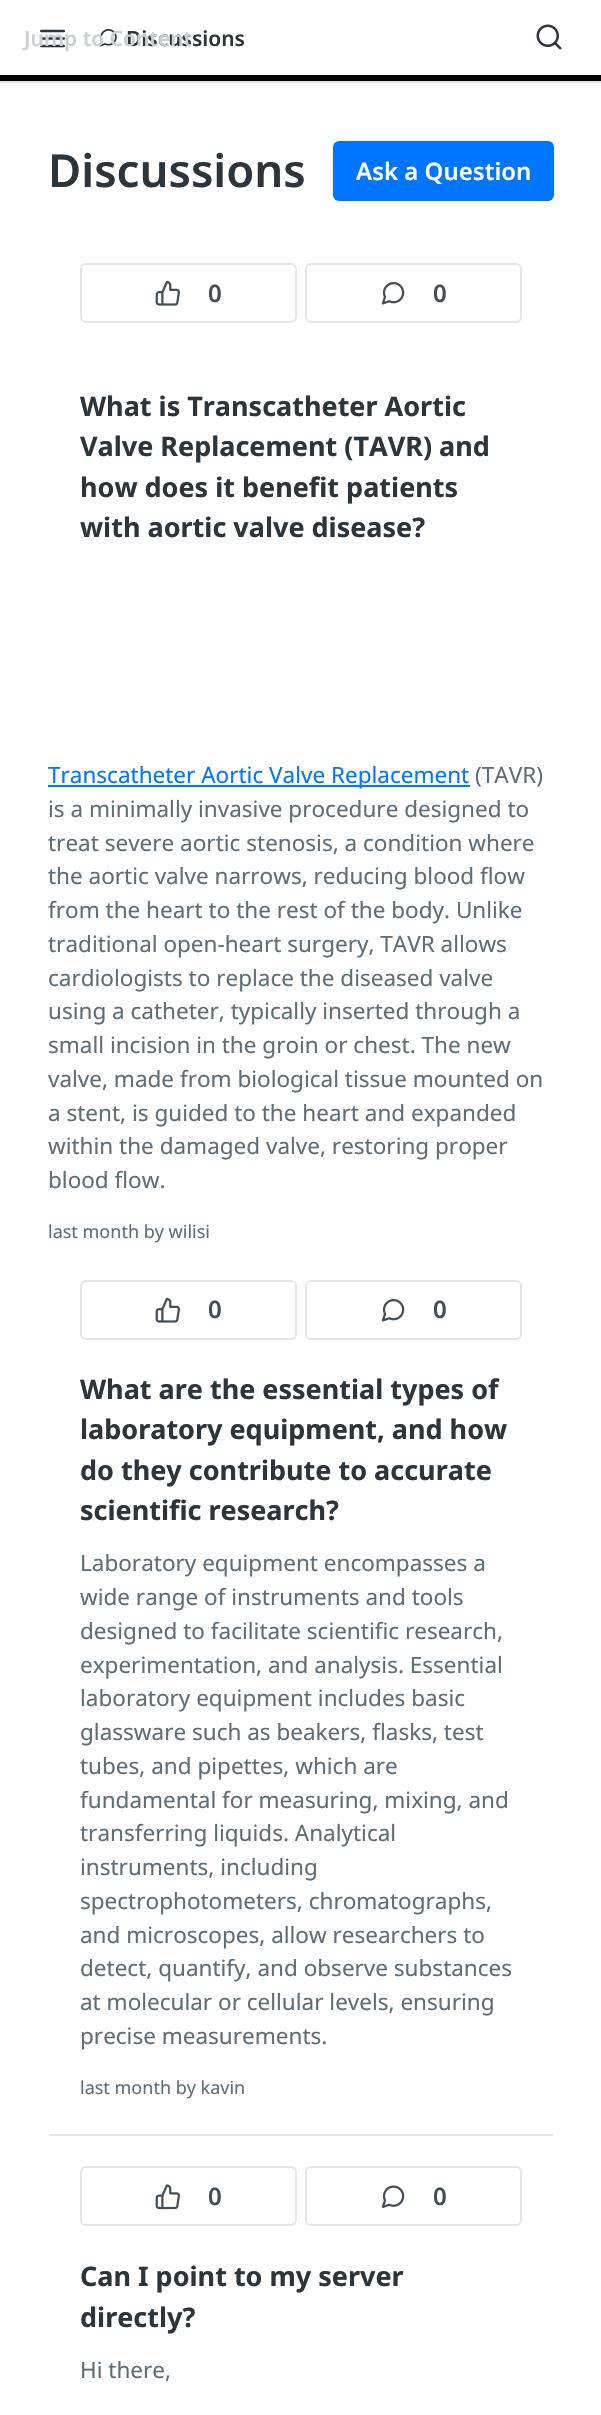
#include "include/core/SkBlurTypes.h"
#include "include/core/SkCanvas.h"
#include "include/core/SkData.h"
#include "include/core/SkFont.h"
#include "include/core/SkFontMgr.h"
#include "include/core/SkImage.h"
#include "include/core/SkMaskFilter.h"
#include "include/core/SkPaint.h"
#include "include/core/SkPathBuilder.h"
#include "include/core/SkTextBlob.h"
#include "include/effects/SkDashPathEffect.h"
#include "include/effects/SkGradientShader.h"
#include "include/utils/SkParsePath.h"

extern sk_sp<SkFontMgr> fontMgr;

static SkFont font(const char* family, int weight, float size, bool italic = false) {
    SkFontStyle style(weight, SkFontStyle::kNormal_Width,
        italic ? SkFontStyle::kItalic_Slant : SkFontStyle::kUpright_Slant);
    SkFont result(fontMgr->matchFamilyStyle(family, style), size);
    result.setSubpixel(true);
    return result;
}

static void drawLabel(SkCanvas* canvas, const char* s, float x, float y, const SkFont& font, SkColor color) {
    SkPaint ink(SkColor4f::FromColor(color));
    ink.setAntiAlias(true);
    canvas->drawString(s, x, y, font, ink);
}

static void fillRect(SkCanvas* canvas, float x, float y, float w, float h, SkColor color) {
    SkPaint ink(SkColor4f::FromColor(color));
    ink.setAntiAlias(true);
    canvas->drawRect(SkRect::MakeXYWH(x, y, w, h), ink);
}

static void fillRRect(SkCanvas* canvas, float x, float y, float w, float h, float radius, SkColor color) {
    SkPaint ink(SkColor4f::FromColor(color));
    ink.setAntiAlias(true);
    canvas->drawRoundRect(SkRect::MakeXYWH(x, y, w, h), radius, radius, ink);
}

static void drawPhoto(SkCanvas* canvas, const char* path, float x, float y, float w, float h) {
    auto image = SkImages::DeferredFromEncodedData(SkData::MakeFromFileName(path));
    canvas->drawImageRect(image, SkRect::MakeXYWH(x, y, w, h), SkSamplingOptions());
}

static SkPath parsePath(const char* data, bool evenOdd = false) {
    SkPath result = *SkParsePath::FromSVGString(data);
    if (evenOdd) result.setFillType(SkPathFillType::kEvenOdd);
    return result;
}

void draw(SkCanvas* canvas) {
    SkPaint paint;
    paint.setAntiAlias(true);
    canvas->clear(0xFFFFFFFF);
    paint.setColor(0xFFE6E6E6);
    canvas->drawPath(parsePath("M0 81V83H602V2V81Z"), paint);
    fillRect(canvas, 0, 75, 601, 6, 0xFF040404);
    drawPhoto(canvas, "assets/img2.png", 40, 29, 25, 19);
    drawPhoto(canvas, "assets/img3.png", 99, 29, 18, 18);
    SkFont font1 = font("Noto Sans", 600, 21);
    drawLabel(canvas, "Discussions", 126, 46, font1, 0xFF2B353B);
    drawLabel(canvas, "Jump to Content", 24, 46, font1, 0xFFCCCFD0);
    drawPhoto(canvas, "assets/img1.png", 536, 24, 26, 26);
    SkFont font2 = font("Noto Sans", 600, 45.5f);
    drawLabel(canvas, "Discussions", 48, 187, font2, 0xFF2B353B);
    fillRRect(canvas, 333, 141, 221, 60, 6, 0xFF0075FF);
    SkFont font3 = font("Noto Sans", 600, 24);
    drawLabel(canvas, "Ask a Question", 356, 180, font3, 0xFFFFFFFF);
    paint.setStroke(true);
    paint.setStrokeWidth(2);
    canvas->drawRoundRect(SkRect::MakeXYWH(81, 264, 215, 58), 5, 5, paint);
    drawPhoto(canvas, "assets/img4.png", 155, 280, 25, 26);
    drawLabel(canvas, "0", 208, 302, font3, 0xFF434E56);
    canvas->drawRoundRect(SkRect::MakeXYWH(306, 264, 215, 58), 5, 5, paint);
    drawPhoto(canvas, "assets/img5.png", 381, 282, 24, 23);
    drawLabel(canvas, "0", 433, 302, font3, 0xFF434E56);
    SkFont font4 = font("Noto Sans", 700, 27);
    drawLabel(canvas, "What is Transcatheter Aortic", 80, 416, font4, 0xFF2B353B);
    drawLabel(canvas, "Valve Replacement (TAVR) and", 80, 456, font4, 0xFF2B353B);
    drawLabel(canvas, "how does it benefit patients", 80, 497, font4, 0xFF2B353B);
    drawLabel(canvas, "with aortic valve disease?", 80, 537, font4, 0xFF2B353B);
    fillRect(canvas, 48, 785, 422, 2, 0xFF0075FF);
    SkFont font5 = font("Noto Sans", 400, 22.5f);
    drawLabel(canvas, "Transcatheter Aortic Valve Replacement", 48, 783, font5, 0xFF0075FF);
    drawLabel(canvas, "(TAVR)", 475, 783, font5, 0xFF5D6D79);
    drawLabel(canvas, "is a minimally invasive procedure designed to", 48, 817, font5, 0xFF5D6D79);
    drawLabel(canvas, "treat severe aortic stenosis, a condition where", 48, 851, font5, 0xFF5D6D79);
    drawLabel(canvas, "the aortic valve narrows, reducing blood flow", 48, 884, font5, 0xFF5D6D79);
    drawLabel(canvas, "from the heart to the rest of the body. Unlike", 48, 918, font5, 0xFF5D6D79);
    drawLabel(canvas, "traditional open-heart surgery, TAVR allows", 48, 952, font5, 0xFF5D6D79);
    drawLabel(canvas, "cardiologists to replace the diseased valve", 48, 986, font5, 0xFF5D6D79);
    drawLabel(canvas, "using a catheter, typically inserted through a", 48, 1019, font5, 0xFF5D6D79);
    drawLabel(canvas, "small incision in the groin or chest. The new", 48, 1053, font5, 0xFF5D6D79);
    drawLabel(canvas, "valve, made from biological tissue mounted on", 48, 1087, font5, 0xFF5D6D79);
    drawLabel(canvas, "a stent, is guided to the heart and expanded", 48, 1121, font5, 0xFF5D6D79);
    drawLabel(canvas, "within the damaged valve, restoring proper", 48, 1154, font5, 0xFF5D6D79);
    drawLabel(canvas, "blood flow.", 48, 1188, font5, 0xFF5D6D79);
    SkFont font6 = font("Noto Sans", 400, 18);
    drawLabel(canvas, "last month by wilisi", 48, 1238, font6, 0xFF5D6D79);
    canvas->drawRoundRect(SkRect::MakeXYWH(81, 1281, 215, 58), 5, 5, paint);
    drawPhoto(canvas, "assets/img4.png", 155, 1297, 25, 26);
    drawLabel(canvas, "0", 208, 1318, font3, 0xFF434E56);
    canvas->drawRoundRect(SkRect::MakeXYWH(306, 1281, 215, 58), 5, 5, paint);
    drawPhoto(canvas, "assets/img5.png", 381, 1299, 24, 23);
    drawLabel(canvas, "0", 433, 1318, font3, 0xFF434E56);
    drawLabel(canvas, "What are the essential types of", 80, 1399, font4, 0xFF2B353B);
    drawLabel(canvas, "laboratory equipment, and how", 80, 1439, font4, 0xFF2B353B);
    drawLabel(canvas, "do they contribute to accurate", 80, 1480, font4, 0xFF2B353B);
    drawLabel(canvas, "scientific research?", 80, 1520, font4, 0xFF2B353B);
    drawLabel(canvas, "Laboratory equipment encompasses a", 80, 1571, font5, 0xFF5D6D79);
    drawLabel(canvas, "wide range of instruments and tools", 80, 1605, font5, 0xFF5D6D79);
    drawLabel(canvas, "designed to facilitate scientific research,", 80, 1639, font5, 0xFF5D6D79);
    drawLabel(canvas, "experimentation, and analysis. Essential", 80, 1673, font5, 0xFF5D6D79);
    drawLabel(canvas, "laboratory equipment includes basic", 80, 1706, font5, 0xFF5D6D79);
    drawLabel(canvas, "glassware such as beakers, flasks, test", 80, 1740, font5, 0xFF5D6D79);
    drawLabel(canvas, "tubes, and pipettes, which are", 80, 1774, font5, 0xFF5D6D79);
    drawLabel(canvas, "fundamental for measuring, mixing, and", 80, 1808, font5, 0xFF5D6D79);
    drawLabel(canvas, "transferring liquids. Analytical", 80, 1841, font5, 0xFF5D6D79);
    drawLabel(canvas, "instruments, including", 80, 1875, font5, 0xFF5D6D79);
    drawLabel(canvas, "spectrophotometers, chromatographs,", 80, 1909, font5, 0xFF5D6D79);
    drawLabel(canvas, "and microscopes, allow researchers to", 80, 1943, font5, 0xFF5D6D79);
    drawLabel(canvas, "detect, quantify, and observe substances", 80, 1976, font5, 0xFF5D6D79);
    drawLabel(canvas, "at molecular or cellular levels, ensuring", 80, 2010, font5, 0xFF5D6D79);
    drawLabel(canvas, "precise measurements.", 80, 2044, font5, 0xFF5D6D79);
    drawLabel(canvas, "last month by kavin", 80, 2094, font6, 0xFF5D6D79);
    paint.setStroke(false);
    canvas->drawPath(parsePath("M48 2134H554L552 2136H50Z"), paint);
    paint.setStroke(true);
    canvas->drawRoundRect(SkRect::MakeXYWH(81, 2167, 215, 58), 5, 5, paint);
    drawPhoto(canvas, "assets/img6.png", 155, 2184, 25, 26);
    drawLabel(canvas, "0", 208, 2205, font3, 0xFF434E56);
    canvas->drawRoundRect(SkRect::MakeXYWH(306, 2167, 215, 58), 5, 5, paint);
    drawPhoto(canvas, "assets/img7.png", 381, 2185, 24, 23);
    drawLabel(canvas, "0", 433, 2205, font3, 0xFF434E56);
    drawLabel(canvas, "Can I point to my server", 80, 2286, font4, 0xFF2B353B);
    drawLabel(canvas, "directly?", 80, 2327, font4, 0xFF2B353B);
    drawLabel(canvas, "Hi there,", 80, 2378, font5, 0xFF5D6D79);
}
